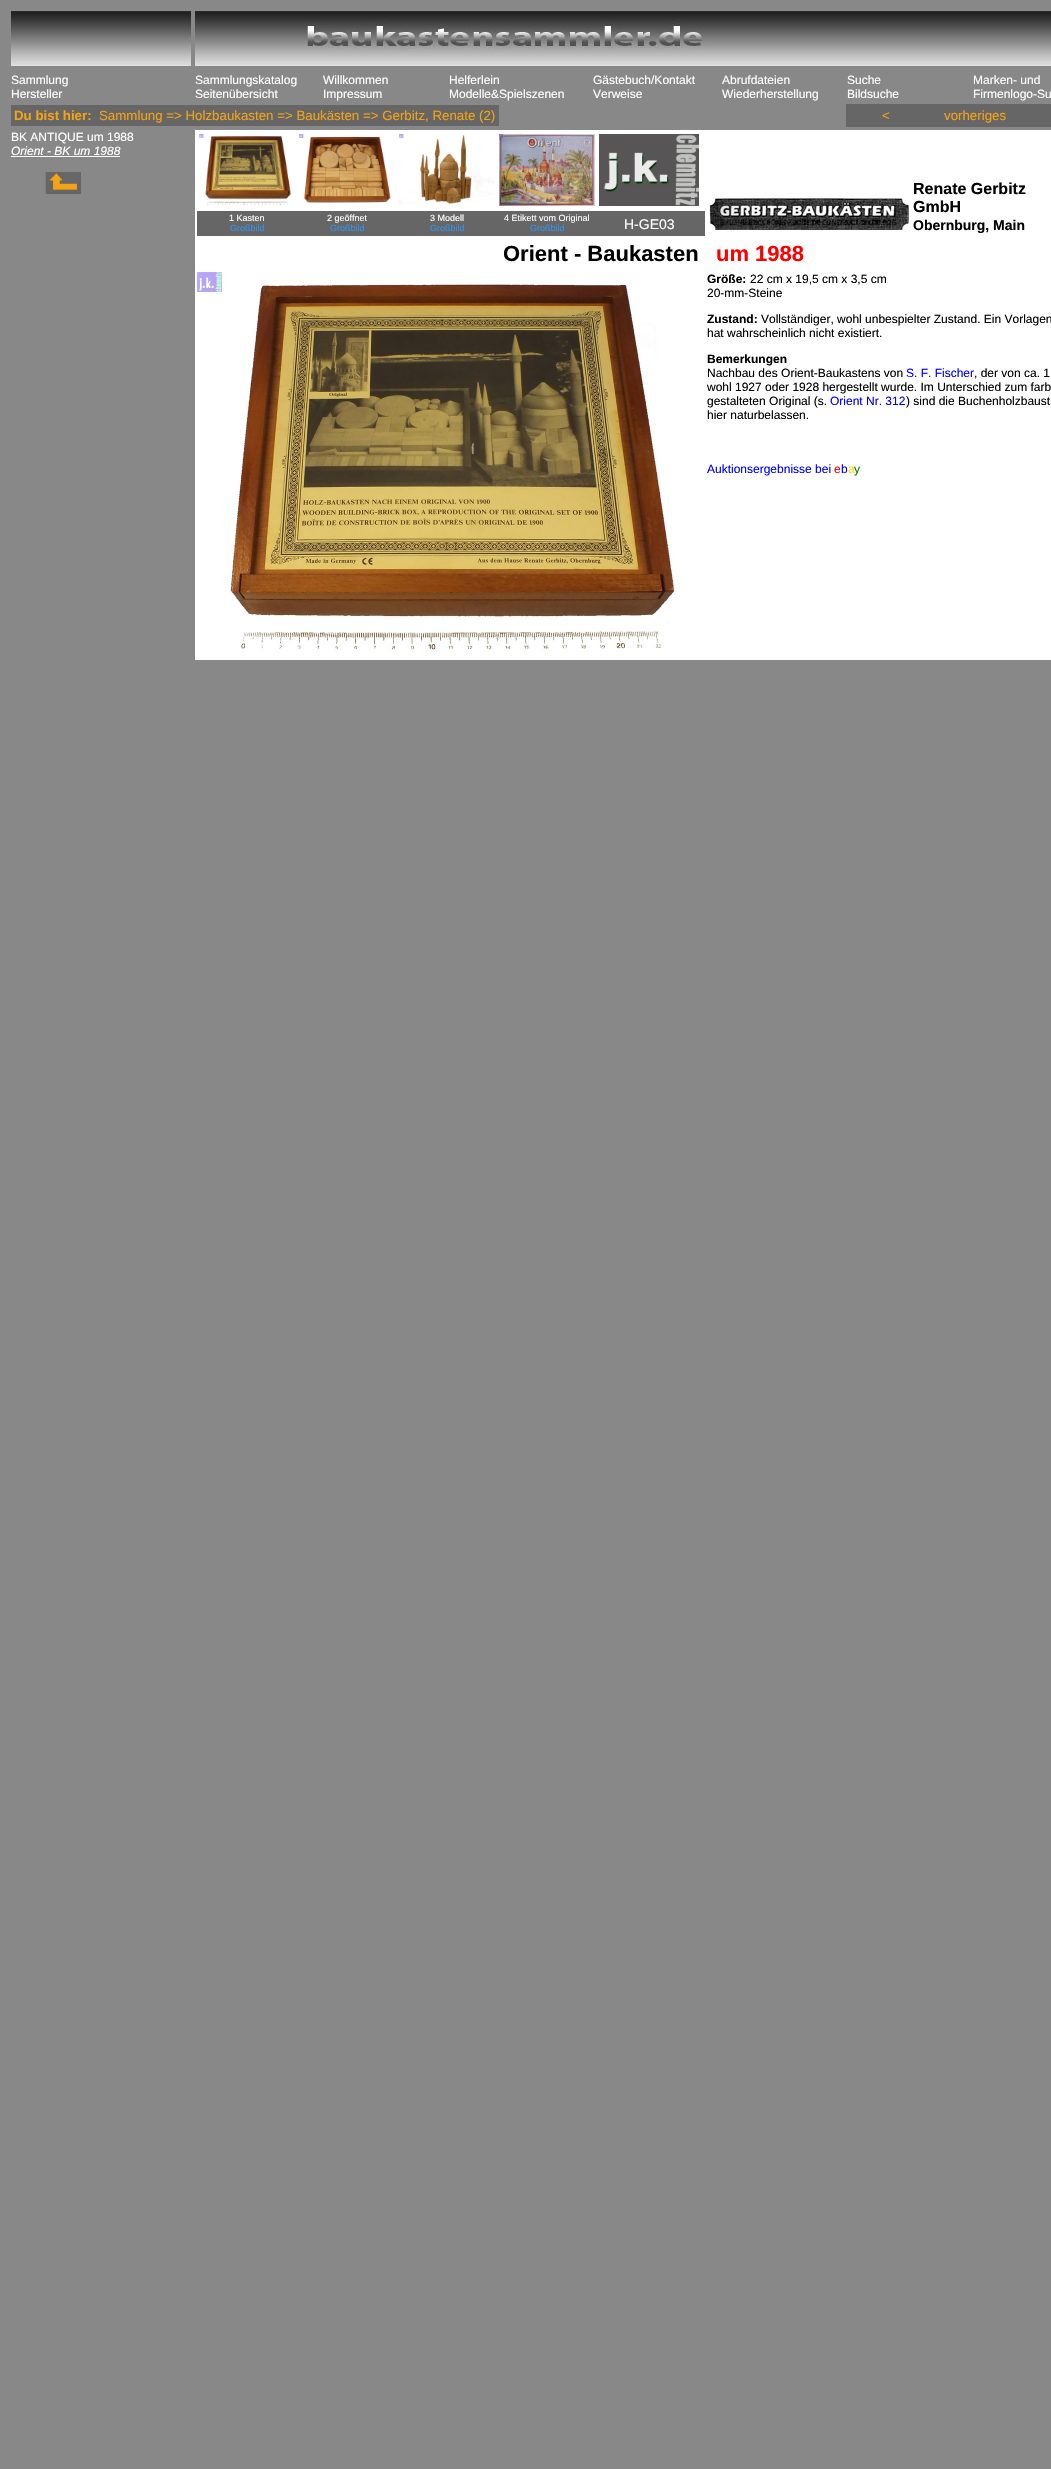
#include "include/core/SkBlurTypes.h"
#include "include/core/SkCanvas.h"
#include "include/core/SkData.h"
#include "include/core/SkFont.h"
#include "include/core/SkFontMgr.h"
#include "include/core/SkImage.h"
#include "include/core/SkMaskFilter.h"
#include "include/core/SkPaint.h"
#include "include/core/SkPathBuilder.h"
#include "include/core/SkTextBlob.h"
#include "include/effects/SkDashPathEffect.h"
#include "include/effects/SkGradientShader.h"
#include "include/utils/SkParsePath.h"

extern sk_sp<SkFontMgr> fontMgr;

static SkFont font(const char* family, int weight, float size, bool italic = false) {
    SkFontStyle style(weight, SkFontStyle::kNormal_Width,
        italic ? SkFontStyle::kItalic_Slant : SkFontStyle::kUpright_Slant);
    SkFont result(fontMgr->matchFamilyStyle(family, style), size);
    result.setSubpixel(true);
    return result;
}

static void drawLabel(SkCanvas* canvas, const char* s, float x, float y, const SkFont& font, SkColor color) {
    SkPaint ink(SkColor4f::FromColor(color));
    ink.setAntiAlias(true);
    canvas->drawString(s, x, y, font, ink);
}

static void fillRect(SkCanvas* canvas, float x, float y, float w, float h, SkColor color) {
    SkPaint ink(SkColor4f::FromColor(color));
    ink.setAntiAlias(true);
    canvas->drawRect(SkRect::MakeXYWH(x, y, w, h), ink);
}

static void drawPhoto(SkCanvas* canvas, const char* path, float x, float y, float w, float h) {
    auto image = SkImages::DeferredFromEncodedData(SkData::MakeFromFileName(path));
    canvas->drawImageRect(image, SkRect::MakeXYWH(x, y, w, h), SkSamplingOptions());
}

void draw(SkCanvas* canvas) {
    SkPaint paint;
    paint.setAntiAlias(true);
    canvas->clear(0xFF888888);
    drawPhoto(canvas, "assets/img1.png", 11, 11, 180, 55);
    drawPhoto(canvas, "assets/img2.png", 195, 11, 856, 55);
    SkFont font1 = font("Liberation Sans", 400, 12);
    drawLabel(canvas, "Sammlung", 11, 84, font1, 0xFFFFFFFF);
    drawLabel(canvas, "Hersteller", 11, 98, font1, 0xFFFFFFFF);
    drawLabel(canvas, "Sammlungskatalog", 195, 84, font1, 0xFFFFFFFF);
    drawLabel(canvas, "Seitenübersicht", 195, 98, font1, 0xFFFFFFFF);
    drawLabel(canvas, "Willkommen", 323, 84, font1, 0xFFFFFFFF);
    drawLabel(canvas, "Impressum", 323, 98, font1, 0xFFFFFFFF);
    drawLabel(canvas, "Helferlein", 449, 84, font1, 0xFFFFFFFF);
    drawLabel(canvas, "Modelle&Spielszenen", 449, 98, font1, 0xFFFFFFFF);
    drawLabel(canvas, "Gästebuch/Kontakt", 593, 84, font1, 0xFFFFFFFF);
    drawLabel(canvas, "Verweise", 593, 98, font1, 0xFFFFFFFF);
    drawLabel(canvas, "Abrufdateien", 722, 84, font1, 0xFFFFFFFF);
    drawLabel(canvas, "Wiederherstellung", 722, 98, font1, 0xFFFFFFFF);
    drawLabel(canvas, "Suche", 847, 84, font1, 0xFFFFFFFF);
    drawLabel(canvas, "Bildsuche", 847, 98, font1, 0xFFFFFFFF);
    drawLabel(canvas, "Marken- und", 973, 84, font1, 0xFFFFFFFF);
    drawLabel(canvas, "Firmenlogo-Su", 973, 98, font1, 0xFFFFFFFF);
    fillRect(canvas, 11, 105, 488, 21, 0xFF666666);
    SkFont font2 = font("Liberation Sans", 700, 13.3f);
    drawLabel(canvas, "Du bist hier:", 14, 120, font2, 0xFFF4A315);
    SkFont font3 = font("Liberation Sans", 400, 13.3f);
    drawLabel(canvas, "Sammlung => Holzbaukasten => Baukästen => Gerbitz, Renate (2)", 99, 120, font3, 0xFFF4A315);
    fillRect(canvas, 846, 104, 205, 23, 0xFF666666);
    drawLabel(canvas, "<", 882, 120, font3, 0xFFF4A315);
    drawLabel(canvas, "vorheriges", 944, 120, font3, 0xFFF4A315);
    drawLabel(canvas, "BK ANTIQUE um 1988", 11, 141, font1, 0xFFFFFFFF);
    SkFont font4 = font("Liberation Sans", 400, 12, true);
    drawLabel(canvas, "Orient - BK um 1988", 11, 155, font4, 0xFFFFFFFF);
    fillRect(canvas, 11, 156, 109, 1, 0xFFFFFFFF);
    drawPhoto(canvas, "assets/img3.png", 45, 172, 36, 22);
    fillRect(canvas, 195, 130, 856, 530, 0xFFFFFFFF);
    drawPhoto(canvas, "assets/img4.png", 199, 134, 92, 72);
    drawPhoto(canvas, "assets/img5.png", 299, 134, 92, 69);
    drawPhoto(canvas, "assets/img6.png", 399, 134, 96, 71);
    drawPhoto(canvas, "assets/img7.png", 499, 134, 96, 72);
    drawPhoto(canvas, "assets/img8.png", 599, 134, 100, 72);
    fillRect(canvas, 197, 211, 508, 25, 0xFF666666);
    SkFont font5 = font("Liberation Sans", 400, 9);
    drawLabel(canvas, "1 Kasten", 229, 221, font5, 0xFFFFFFFF);
    drawLabel(canvas, "Großbild", 230, 231, font5, 0xFF3194F1);
    drawLabel(canvas, "2 geöffnet", 327, 221, font5, 0xFFFFFFFF);
    drawLabel(canvas, "Großbild", 330, 231, font5, 0xFF3194F1);
    drawLabel(canvas, "3 Modell", 430, 221, font5, 0xFFFFFFFF);
    drawLabel(canvas, "Großbild", 430, 231, font5, 0xFF3194F1);
    drawLabel(canvas, "4 Etikett vom Original", 504, 221, font5, 0xFFFFFFFF);
    drawLabel(canvas, "Großbild", 530, 231, font5, 0xFF3194F1);
    SkFont font6 = font("Liberation Sans", 400, 14);
    drawLabel(canvas, "H-GE03", 624, 229, font6, 0xFFFFFFFF);
    drawPhoto(canvas, "assets/img9.png", 709, 198, 200, 32);
    SkFont font7 = font("Liberation Sans", 700, 16);
    drawLabel(canvas, "Renate Gerbitz", 913, 194, font7, 0xFF000000);
    drawLabel(canvas, "GmbH", 913, 212, font7, 0xFF000000);
    SkFont font8 = font("Liberation Sans", 700, 14);
    drawLabel(canvas, "Obernburg, Main", 913, 230, font8, 0xFF000000);
    SkFont font9 = font("Liberation Sans", 700, 22);
    drawLabel(canvas, "Orient - Baukasten", 503, 261, font9, 0xFF000000);
    drawLabel(canvas, "um 1988", 716, 261, font9, 0xFFFF0000);
    drawPhoto(canvas, "assets/img10.png", 197, 272, 480, 380);
    SkFont font10 = font("Liberation Sans", 700, 12);
    drawLabel(canvas, "Größe:", 707, 283, font10, 0xFF000000);
    drawLabel(canvas, "22 cm x 19,5 cm x 3,5 cm", 750, 283, font1, 0xFF000000);
    drawLabel(canvas, "20-mm-Steine", 707, 297, font1, 0xFF000000);
    drawLabel(canvas, "Zustand:", 707, 323, font10, 0xFF000000);
    drawLabel(canvas, "Vollständiger, wohl unbespielter Zustand. Ein Vorlagen", 761, 323, font1, 0xFF000000);
    drawLabel(canvas, "hat wahrscheinlich nicht existiert.", 707, 337, font1, 0xFF000000);
    drawLabel(canvas, "Bemerkungen", 707, 363, font10, 0xFF000000);
    drawLabel(canvas, "Nachbau des Orient-Baukastens von", 707, 377, font1, 0xFF000000);
    drawLabel(canvas, "S. F. Fischer", 906, 377, font1, 0xFF0000FF);
    drawLabel(canvas, ", der von ca. 1", 974, 377, font1, 0xFF000000);
    drawLabel(canvas, "wohl 1927 oder 1928 hergestellt wurde. Im Unterschied zum farb", 707, 391, font1, 0xFF000000);
    drawLabel(canvas, "gestalteten Original (s.", 707, 405, font1, 0xFF000000);
    drawLabel(canvas, "Orient Nr. 312", 830, 405, font1, 0xFF0000FF);
    drawLabel(canvas, ") sind die Buchenholzbaust", 906, 405, font1, 0xFF000000);
    drawLabel(canvas, "hier naturbelassen.", 707, 419, font1, 0xFF000000);
    drawLabel(canvas, "Auktionsergebnisse bei", 707, 473, font1, 0xFF0000FF);
    drawLabel(canvas, "e", 834, 473, font1, 0xFFFF0000);
    drawLabel(canvas, "b", 841, 473, font1, 0xFF0000FF);
    drawLabel(canvas, "a", 848, 473, font1, 0xFFFFD700);
    drawLabel(canvas, "y", 854, 473, font1, 0xFF008000);
}
